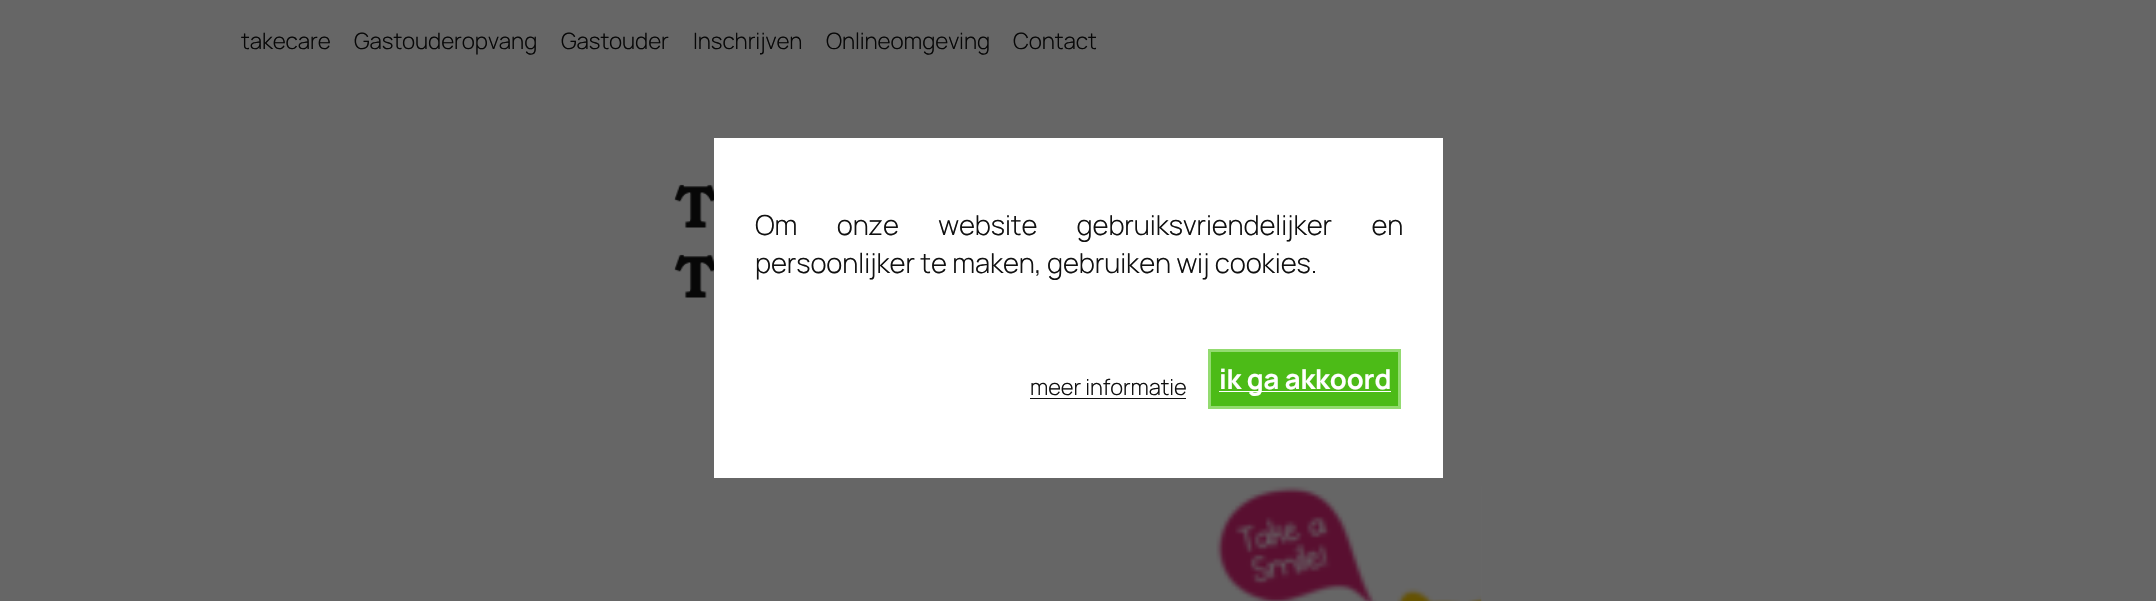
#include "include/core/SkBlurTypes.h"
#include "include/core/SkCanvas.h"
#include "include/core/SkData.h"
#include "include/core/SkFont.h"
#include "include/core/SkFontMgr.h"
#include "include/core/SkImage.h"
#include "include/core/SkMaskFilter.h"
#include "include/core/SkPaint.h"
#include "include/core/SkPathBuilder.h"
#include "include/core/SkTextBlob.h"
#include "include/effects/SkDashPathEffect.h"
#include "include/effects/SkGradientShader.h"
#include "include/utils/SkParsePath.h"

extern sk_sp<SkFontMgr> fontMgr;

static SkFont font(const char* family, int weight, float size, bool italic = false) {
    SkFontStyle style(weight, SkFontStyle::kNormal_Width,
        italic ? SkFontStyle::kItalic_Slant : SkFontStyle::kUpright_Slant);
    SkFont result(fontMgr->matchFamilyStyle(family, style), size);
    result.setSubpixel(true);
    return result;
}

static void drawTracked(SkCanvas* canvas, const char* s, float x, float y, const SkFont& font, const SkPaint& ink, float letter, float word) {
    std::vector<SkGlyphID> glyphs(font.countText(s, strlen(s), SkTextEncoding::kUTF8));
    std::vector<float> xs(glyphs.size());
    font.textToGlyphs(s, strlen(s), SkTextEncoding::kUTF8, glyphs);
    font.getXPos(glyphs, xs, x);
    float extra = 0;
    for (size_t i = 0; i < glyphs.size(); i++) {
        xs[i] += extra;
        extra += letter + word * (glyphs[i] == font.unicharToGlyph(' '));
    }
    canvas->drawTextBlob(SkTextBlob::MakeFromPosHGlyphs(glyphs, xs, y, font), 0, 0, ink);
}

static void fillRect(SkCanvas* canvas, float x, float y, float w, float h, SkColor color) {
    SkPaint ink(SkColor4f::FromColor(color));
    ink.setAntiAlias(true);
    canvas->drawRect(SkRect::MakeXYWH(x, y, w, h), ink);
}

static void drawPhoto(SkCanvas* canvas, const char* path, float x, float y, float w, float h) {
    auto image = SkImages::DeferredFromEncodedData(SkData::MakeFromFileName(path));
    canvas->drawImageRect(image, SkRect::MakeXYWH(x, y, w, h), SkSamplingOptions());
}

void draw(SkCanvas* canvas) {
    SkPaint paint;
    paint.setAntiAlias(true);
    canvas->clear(0xFF666666);
    SkFont font1 = font("Manrope", 300, 22.5f);
    paint.setColor(0xFF070707);
    drawTracked(canvas, "takecare", 241, 49, font1, paint, -0.1f, 0);
    drawTracked(canvas, "Gastouderopvang", 354, 49, font1, paint, -0.1f, 0);
    drawTracked(canvas, "Gastouder", 561, 49, font1, paint, -0.1f, 0);
    drawTracked(canvas, "Inschrijven", 693, 49, font1, paint, -0.1f, 0);
    drawTracked(canvas, "Onlineomgeving", 826, 49, font1, paint, -0.1f, 0);
    drawTracked(canvas, "Contact", 1013, 49, font1, paint, -0.1f, 0);
    drawPhoto(canvas, "assets/img1.png", 674, 184, 40, 44);
    drawPhoto(canvas, "assets/img1.png", 674, 254, 40, 44);
    drawPhoto(canvas, "assets/img2.png", 1216, 486, 266, 115);
    fillRect(canvas, 714, 138, 729, 340, 0xFFFFFFFF);
    SkFont font2 = font("Manrope", 300, 27.5f);
    paint.setColor(0xFF111111);
    drawTracked(canvas, "Om onze website gebruiksvriendelijker en", 755, 235, font2, paint, -0.1f, 34);
    drawTracked(canvas, "persoonlijker te maken, gebruiken wij cookies.", 755, 273, font2, paint, -0.1f, 0);
    SkFont font3 = font("Manrope", 300, 22);
    drawTracked(canvas, "meer informatie", 1030, 395, font3, paint, -0.1f, 0);
    fillRect(canvas, 1030, 398, 156, 1, 0xFF111111);
    paint.setColor(0xFF4CBB17);
    canvas->drawRect(SkRect::MakeXYWH(1209.5f, 350.5f, 190, 57), paint);
    paint.setStroke(true);
    paint.setStrokeWidth(3);
    paint.setColor(0xFF93DB70);
    canvas->drawRect(SkRect::MakeXYWH(1209.5f, 350.5f, 190, 57), paint);
    fillRect(canvas, 1219, 391, 172, 1, 0xFFFFFFFF);
    SkFont font4 = font("Manrope", 700, 27.5f);
    paint.setStroke(false);
    paint.setColor(0xFFFFFFFF);
    drawTracked(canvas, "ik ga akkoord", 1219, 389, font4, paint, -0.1f, 0);
}
